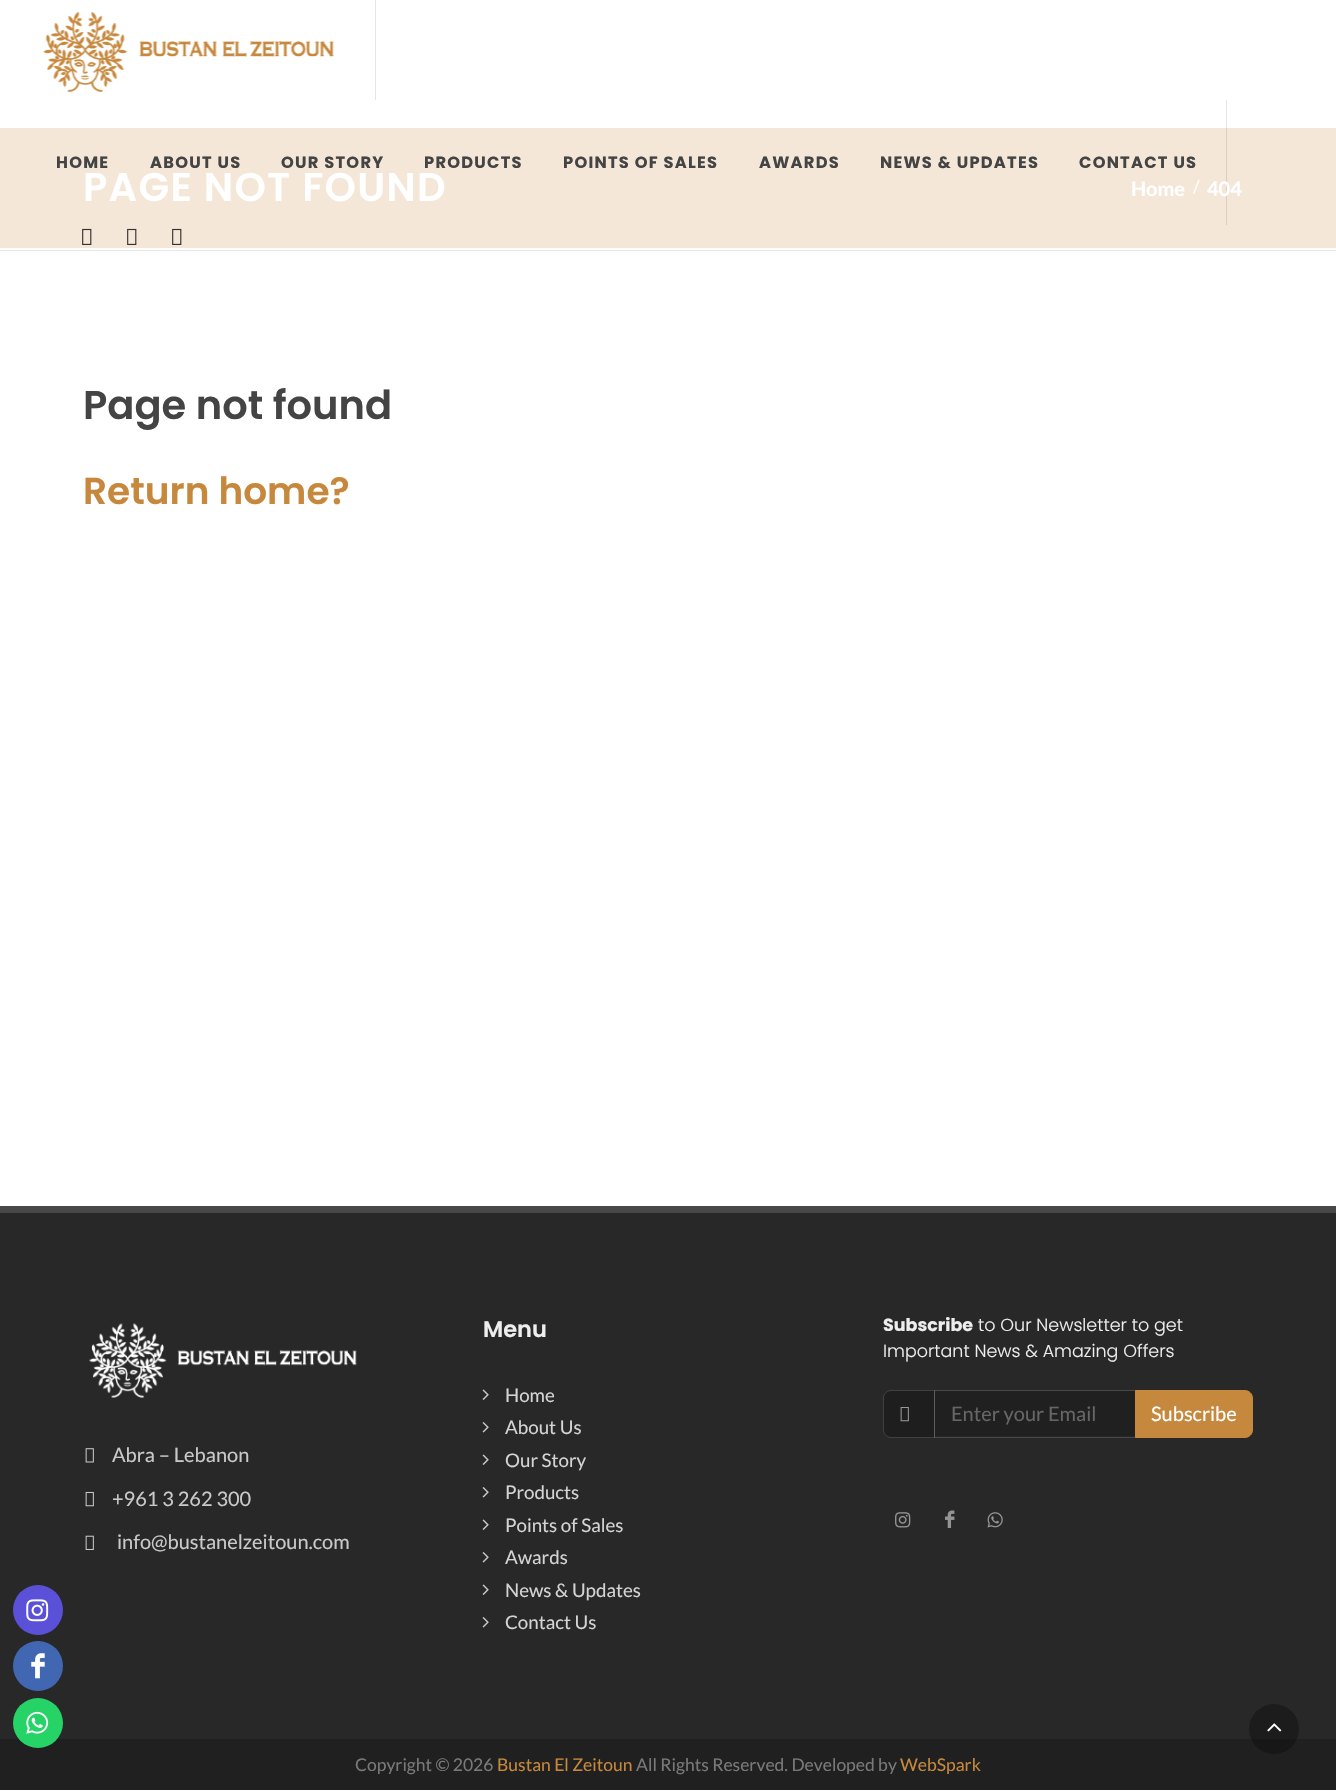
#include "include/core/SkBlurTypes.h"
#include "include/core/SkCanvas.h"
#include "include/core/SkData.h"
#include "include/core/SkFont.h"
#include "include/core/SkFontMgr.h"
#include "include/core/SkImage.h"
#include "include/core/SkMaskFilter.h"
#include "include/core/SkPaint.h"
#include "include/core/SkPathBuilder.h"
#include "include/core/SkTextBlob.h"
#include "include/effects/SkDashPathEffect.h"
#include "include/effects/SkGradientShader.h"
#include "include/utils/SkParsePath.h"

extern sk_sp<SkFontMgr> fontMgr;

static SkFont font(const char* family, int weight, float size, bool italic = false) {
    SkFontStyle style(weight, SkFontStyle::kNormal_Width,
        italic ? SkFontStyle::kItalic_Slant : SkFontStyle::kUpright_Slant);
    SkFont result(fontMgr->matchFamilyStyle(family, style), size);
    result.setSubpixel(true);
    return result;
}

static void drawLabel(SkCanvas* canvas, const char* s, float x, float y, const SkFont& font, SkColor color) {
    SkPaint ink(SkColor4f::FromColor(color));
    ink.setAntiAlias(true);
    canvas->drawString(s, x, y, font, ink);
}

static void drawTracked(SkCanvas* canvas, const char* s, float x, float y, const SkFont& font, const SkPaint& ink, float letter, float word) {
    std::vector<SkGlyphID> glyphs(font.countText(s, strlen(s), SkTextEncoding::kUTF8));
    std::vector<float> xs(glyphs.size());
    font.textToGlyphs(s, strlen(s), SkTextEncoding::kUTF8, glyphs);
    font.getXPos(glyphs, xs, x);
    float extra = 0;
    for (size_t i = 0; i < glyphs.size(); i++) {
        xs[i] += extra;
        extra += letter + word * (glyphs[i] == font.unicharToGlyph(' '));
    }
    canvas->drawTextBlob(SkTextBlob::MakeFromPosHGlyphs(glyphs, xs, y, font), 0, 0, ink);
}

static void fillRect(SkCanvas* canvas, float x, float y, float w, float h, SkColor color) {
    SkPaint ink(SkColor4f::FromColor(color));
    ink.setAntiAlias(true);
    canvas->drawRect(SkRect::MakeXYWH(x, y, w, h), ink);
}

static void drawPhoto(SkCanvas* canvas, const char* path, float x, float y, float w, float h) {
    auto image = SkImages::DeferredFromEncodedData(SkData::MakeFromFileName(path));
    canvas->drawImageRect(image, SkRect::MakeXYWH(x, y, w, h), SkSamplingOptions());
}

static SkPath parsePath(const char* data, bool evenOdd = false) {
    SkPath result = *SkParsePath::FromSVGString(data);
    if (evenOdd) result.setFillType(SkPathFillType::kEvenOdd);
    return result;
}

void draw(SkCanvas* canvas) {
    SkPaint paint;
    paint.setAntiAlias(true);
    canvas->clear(0xFFFFFFFF);
    fillRect(canvas, 0, 1213, 1336, 526, 0xFF282828);
    paint.setColor(0xFF5B51D8);
    canvas->drawCircle(38, 1610, 25, paint);
    drawPhoto(canvas, "assets/img1.png", 26, 1599, 23, 23);
    paint.setColor(0xFF4267B2);
    canvas->drawCircle(38, 1666, 25, paint);
    drawPhoto(canvas, "assets/img2.png", 31, 1653, 14, 26);
    fillRect(canvas, 0, 1739, 1336, 51, 0xFF202020);
    paint.setColor(0xFF25D366);
    canvas->drawCircle(38, 1723, 25, paint);
    drawPhoto(canvas, "assets/img3.png", 26, 1711, 23, 23);
    fillRect(canvas, 0, 250, 1336, 1, 0xFFE6E6E6);
    fillRect(canvas, 375, 0, 1, 100, 0xFFE6E6E6);
    drawPhoto(canvas, "assets/img4.png", 43, 12, 291, 81);
    fillRect(canvas, 0, 128, 1336, 120, 0xFFF4E7D8);
    fillRect(canvas, 1226, 100, 1, 125, 0x1A000000);
    SkFont font1 = font("Poppins", 700, 16.25f);
    paint.setColor(0xFF444444);
    drawTracked(canvas, "HOME", 56, 168, font1, paint, 1.25f, 0);
    drawTracked(canvas, "ABOUT US", 150, 168, font1, paint, 1.25f, 0);
    drawTracked(canvas, "OUR STORY", 281, 168, font1, paint, 1.25f, 0);
    drawTracked(canvas, "PRODUCTS", 424, 168, font1, paint, 1.25f, 0);
    drawTracked(canvas, "POINTS OF SALES", 563, 168, font1, paint, 1.25f, 0);
    drawTracked(canvas, "AWARDS", 759, 168, font1, paint, 1.25f, 0);
    drawTracked(canvas, "NEWS & UPDATES", 880, 168, font1, paint, 1.25f, 0);
    drawTracked(canvas, "CONTACT US", 1079, 168, font1, paint, 1.25f, 0);
    drawPhoto(canvas, "assets/img5.png", 82, 228, 10, 17);
    drawPhoto(canvas, "assets/img5.png", 127, 228, 10, 17);
    drawPhoto(canvas, "assets/img5.png", 172, 228, 10, 17);
    fillRect(canvas, 0, 248, 1336, 1, 0xFFFCFCFC);
    SkFont font2 = font("Poppins", 600, 40);
    paint.setColor(0xFFFFFFFF);
    drawTracked(canvas, "PAGE NOT FOUND", 83, 201, font2, paint, 1.25f, 0);
    SkFont font3 = font("Lato", 700, 20);
    drawLabel(canvas, "Home", 1131, 196, font3, 0xFFFFFFFF);
    SkFont font4 = font("Lato", 400, 18);
    drawLabel(canvas, "/", 1193, 193, font4, 0xFFFFFFFF);
    drawLabel(canvas, "404", 1207, 196, font3, 0xFFFFFFFF);
    drawLabel(canvas, "Page not found", 83, 419, font2, 0xFF444444);
    SkFont font5 = font("Poppins", 600, 37.5f);
    drawLabel(canvas, "Return home?", 83, 504, font5, 0xFFC6883D);
    fillRect(canvas, 0, 1206, 1336, 7, 0xFF484848);
    drawPhoto(canvas, "assets/img6.png", 89, 1323, 268, 75);
    drawPhoto(canvas, "assets/img7.png", 85, 1448, 9, 15);
    SkFont font6 = font("Lato", 400, 20);
    drawLabel(canvas, "Abra – Lebanon", 112, 1462, font6, 0xFFC9C9C9);
    drawPhoto(canvas, "assets/img8.png", 85, 1491, 9, 16);
    drawLabel(canvas, "+961 3 262 300", 112, 1506, font6, 0xFFC9C9C9);
    drawPhoto(canvas, "assets/img9.png", 85, 1535, 9, 15);
    drawLabel(canvas, "info@bustanelzeitoun.com", 117, 1549, font6, 0xFFC9C9C9);
    SkFont font7 = font("Poppins", 600, 22.5f);
    drawLabel(canvas, "Menu", 483, 1337, font7, 0xFFEEEEEE);
    drawPhoto(canvas, "assets/img10.png", 482, 1389, 7, 11);
    SkFont font8 = font("Lato", 400, 18.75f);
    drawLabel(canvas, "Home", 505, 1402, font8, 0xFFD4D4D4);
    drawPhoto(canvas, "assets/img11.png", 482, 1422, 7, 11);
    drawLabel(canvas, "About Us", 505, 1434, font8, 0xFFD4D4D4);
    drawPhoto(canvas, "assets/img10.png", 482, 1454, 7, 11);
    drawLabel(canvas, "Our Story", 505, 1467, font8, 0xFFD4D4D4);
    drawPhoto(canvas, "assets/img11.png", 482, 1487, 7, 11);
    drawLabel(canvas, "Products", 505, 1499, font8, 0xFFD4D4D4);
    drawPhoto(canvas, "assets/img10.png", 482, 1519, 7, 11);
    drawLabel(canvas, "Points of Sales", 505, 1532, font8, 0xFFD4D4D4);
    drawPhoto(canvas, "assets/img11.png", 482, 1552, 7, 11);
    drawLabel(canvas, "Awards", 505, 1564, font8, 0xFFD4D4D4);
    drawPhoto(canvas, "assets/img10.png", 482, 1584, 7, 11);
    drawLabel(canvas, "News & Updates", 505, 1597, font8, 0xFFD4D4D4);
    drawPhoto(canvas, "assets/img11.png", 482, 1617, 7, 11);
    drawLabel(canvas, "Contact Us", 505, 1629, font8, 0xFFD4D4D4);
    SkFont font9 = font("Poppins", 700, 17.5f);
    drawLabel(canvas, "Subscribe", 883, 1331, font9, 0xFFEEEEEE);
    SkFont font10 = font("Poppins", 300, 17.5f);
    drawLabel(canvas, "to Our Newsletter to get", 978, 1331, font10, 0xFFEEEEEE);
    drawLabel(canvas, "Important News & Amazing Offers", 883, 1357, font10, 0xFFEEEEEE);
    paint.setColor(0xFF1E1E1E);
    canvas->drawPath(parsePath("M891 1390H935V1438H891C886.5 1438 883 1434.5 883 1430V1398C883 1393.5 886.5 1390 891 1390Z"), paint);
    paint.setStroke(true);
    paint.setStrokeWidth(1);
    paint.setColor(0x26FFFFFF);
    canvas->drawPath(parsePath("M891 1390.5H934.5V1437.5H891C887 1437.5 883.5 1434 883.5 1430V1398C883.5 1394 887 1390.5 891 1390.5Z"), paint);
    drawPhoto(canvas, "assets/img12.png", 900, 1407, 9, 15);
    fillRect(canvas, 935, 1391, 200, 45, 0xFF202020);
    canvas->drawRect(SkRect::MakeXYWH(934.5f, 1390.5f, 201, 47), paint);
    drawLabel(canvas, "Enter your Email", 951, 1421, font6, 0xFF666666);
    paint.setStroke(false);
    paint.setColor(0xFFC6883D);
    canvas->drawPath(parsePath("M1135.5 1390.5H1245C1249 1390.5 1252.5 1394 1252.5 1398V1430C1252.5 1434 1249 1437.5 1245 1437.5H1135.5Z"), paint);
    paint.setStroke(true);
    canvas->drawPath(parsePath("M1135.5 1390.5H1245C1249 1390.5 1252.5 1394 1252.5 1398V1430C1252.5 1434 1249 1437.5 1245 1437.5H1135.5Z"), paint);
    drawLabel(canvas, "Subscribe", 1151, 1421, font6, 0xFFFFFFFF);
    drawPhoto(canvas, "assets/img13.png", 895, 1512, 16, 16);
    drawPhoto(canvas, "assets/img14.png", 945, 1510, 10, 18);
    drawPhoto(canvas, "assets/img15.png", 987, 1512, 16, 16);
    SkFont font11 = font("Lato", 400, 17.5f);
    drawLabel(canvas, "Copyright © 2026", 355, 1771, font11, 0xFF797979);
    drawLabel(canvas, "Bustan El Zeitoun", 497, 1771, font11, 0xFFC6883D);
    drawLabel(canvas, "All Rights Reserved. Developed by", 636, 1771, font11, 0xFF797979);
    drawLabel(canvas, "WebSpark", 900, 1771, font11, 0xFFC6883D);
    paint.setStroke(false);
    paint.setColor(0x4D000000);
    canvas->drawCircle(1274, 1729, 25, paint);
    drawPhoto(canvas, "assets/img16.png", 1267, 1723, 15, 9);
}
